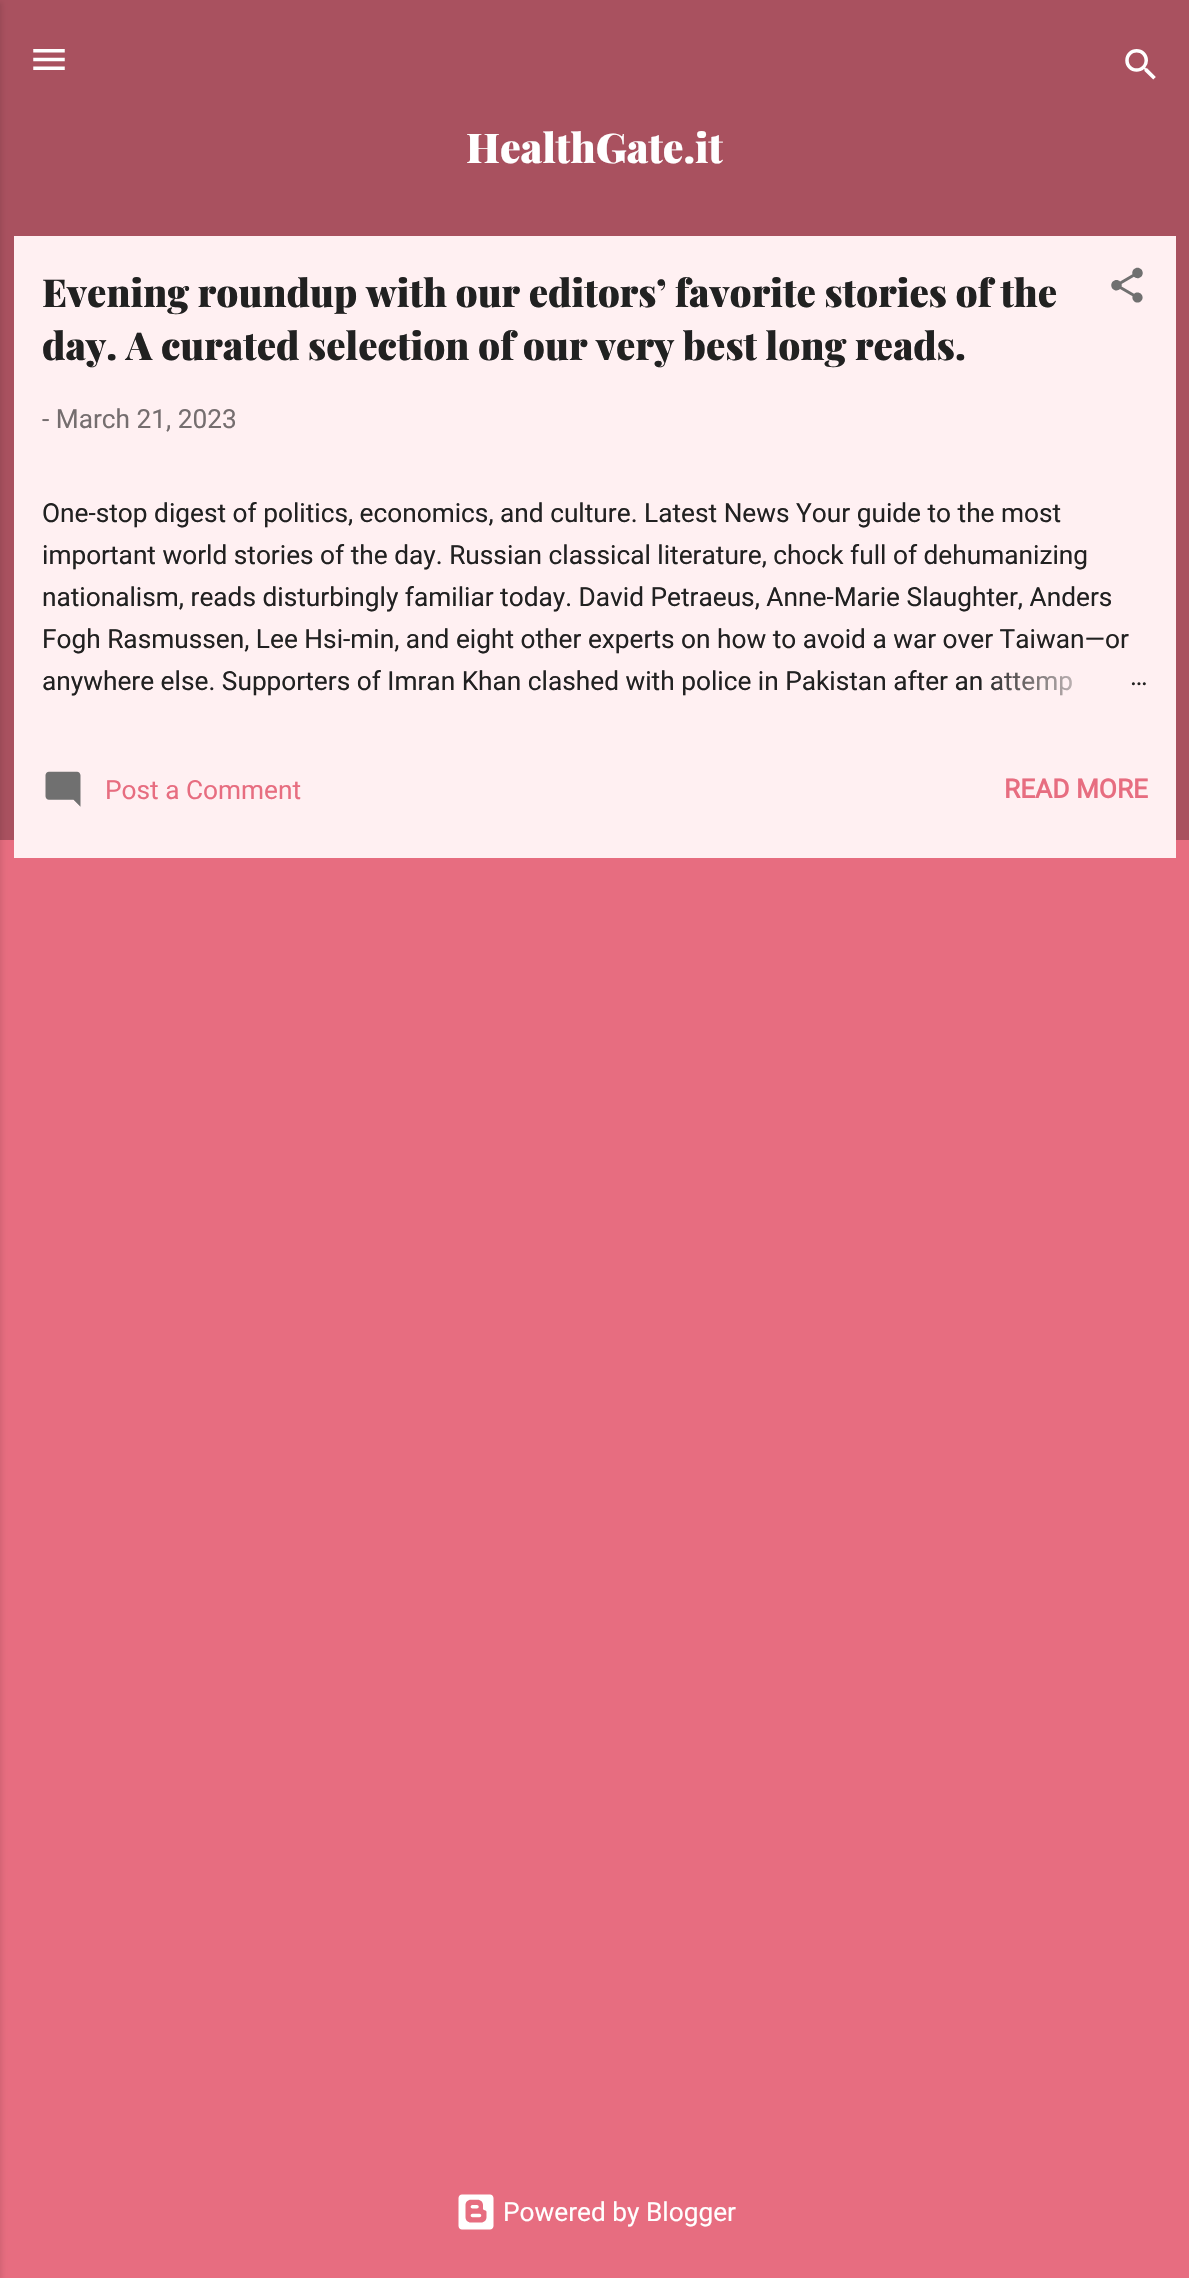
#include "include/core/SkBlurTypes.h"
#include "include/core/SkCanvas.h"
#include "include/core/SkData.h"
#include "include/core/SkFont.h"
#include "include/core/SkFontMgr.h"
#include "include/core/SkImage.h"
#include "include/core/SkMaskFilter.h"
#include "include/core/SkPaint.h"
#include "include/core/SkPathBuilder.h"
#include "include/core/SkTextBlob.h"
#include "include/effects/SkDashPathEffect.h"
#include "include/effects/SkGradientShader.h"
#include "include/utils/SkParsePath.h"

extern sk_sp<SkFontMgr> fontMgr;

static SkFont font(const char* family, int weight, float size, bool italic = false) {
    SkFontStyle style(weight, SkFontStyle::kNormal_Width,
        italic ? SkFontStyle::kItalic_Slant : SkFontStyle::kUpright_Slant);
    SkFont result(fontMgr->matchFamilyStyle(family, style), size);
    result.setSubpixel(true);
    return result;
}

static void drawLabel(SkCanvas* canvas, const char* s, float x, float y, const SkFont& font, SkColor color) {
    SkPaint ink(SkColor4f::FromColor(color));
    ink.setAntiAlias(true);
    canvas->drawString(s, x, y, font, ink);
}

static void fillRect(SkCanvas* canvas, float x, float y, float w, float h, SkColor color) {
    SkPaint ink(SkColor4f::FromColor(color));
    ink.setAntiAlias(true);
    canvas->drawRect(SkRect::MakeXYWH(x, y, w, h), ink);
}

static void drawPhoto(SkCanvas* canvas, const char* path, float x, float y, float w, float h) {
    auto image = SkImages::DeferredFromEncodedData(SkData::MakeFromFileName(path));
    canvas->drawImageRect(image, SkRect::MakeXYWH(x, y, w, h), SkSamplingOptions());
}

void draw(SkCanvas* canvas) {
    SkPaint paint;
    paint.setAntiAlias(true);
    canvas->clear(0xFFE76D80);
    fillRect(canvas, 0, 0, 1189, 840, 0xFFA9515F);
    paint.setColor(0x1A000000);
    paint.setMaskFilter(SkMaskFilter::MakeBlur(kNormal_SkBlurStyle, 2.5f));
    canvas->drawRect(SkRect::MakeXYWH(-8, 2, 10, 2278), paint);
    paint.setMaskFilter(nullptr);
    drawPhoto(canvas, "assets/img1.png", 33, 49, 32, 21);
    drawPhoto(canvas, "assets/img2.png", 1125, 49, 31, 31);
    SkFont font1 = font("Playfair Display", 900, 41);
    drawLabel(canvas, "HealthGate.it", 466, 163, font1, 0xFFFFFFFF);
    fillRect(canvas, 14, 236, 1162, 622, 0xFFFFF0F2);
    SkFont font2 = font("Playfair Display", 900, 38.5f);
    drawLabel(canvas, "Evening roundup with our editors’ favorite stories of the", 42, 307, font2, 0xFF212121);
    drawLabel(canvas, "day. A curated selection of our very best long reads.", 42, 360, font2, 0xFF212121);
    drawPhoto(canvas, "assets/img3.png", 1111, 267, 32, 36);
    SkFont font3 = font("Roboto", 400, 26.25f);
    drawLabel(canvas, "- March 21, 2023", 42, 428, font3, 0xFF756E6F);
    drawLabel(canvas, "One-stop digest of politics, economics, and culture. Latest News Your guide to the most", 42, 522, font3, 0xFF212121);
    drawLabel(canvas, "important world stories of the day. Russian classical literature, chock full of dehumanizing", 42, 564, font3, 0xFF212121);
    drawLabel(canvas, "nationalism, reads disturbingly familiar today. David Petraeus, Anne-Marie Slaughter, Anders", 42, 606, font3, 0xFF212121);
    drawLabel(canvas, "Fogh Rasmussen, Lee Hsi-min, and eight other experts on how to avoid a war over Taiwan—or", 42, 648, font3, 0xFF212121);
    drawLabel(canvas, "anywhere else. Supporters of Imran Khan clashed with police in Pakistan after an attemp", 42, 690, font3, 0xFF212121);
    {
        const SkColor colors[] = {0xFFFFF0F2, 0xFFFFF0F2, 0x00FFF0F2};
        const float stops[] = {0, 0.2f, 1};
        const SkPoint ends[] = {{1148, 681}, {980, 681}};
        paint.setShader(SkGradientShader::MakeLinear(ends, colors, stops, 3, SkTileMode::kClamp));
        paint.setAlpha(255);
    }
    canvas->drawRect(SkRect::MakeXYWH(991, 672, 81, 24), paint);
    drawLabel(canvas, "…", 1130, 685, font3, 0xFF212121);
    drawPhoto(canvas, "assets/img4.png", 45, 771, 36, 36);
    drawLabel(canvas, "Post a Comment", 105, 799, font3, 0xFFE76D80);
    SkFont font4 = font("Roboto", 700, 26.25f);
    drawLabel(canvas, "READ MORE", 1004, 798, font4, 0xFFE76D80);
    drawPhoto(canvas, "assets/img5.png", 458, 2194, 36, 36);
    drawLabel(canvas, "Powered by Blogger", 503, 2221, font3, 0xFFFFFFFF);
}
